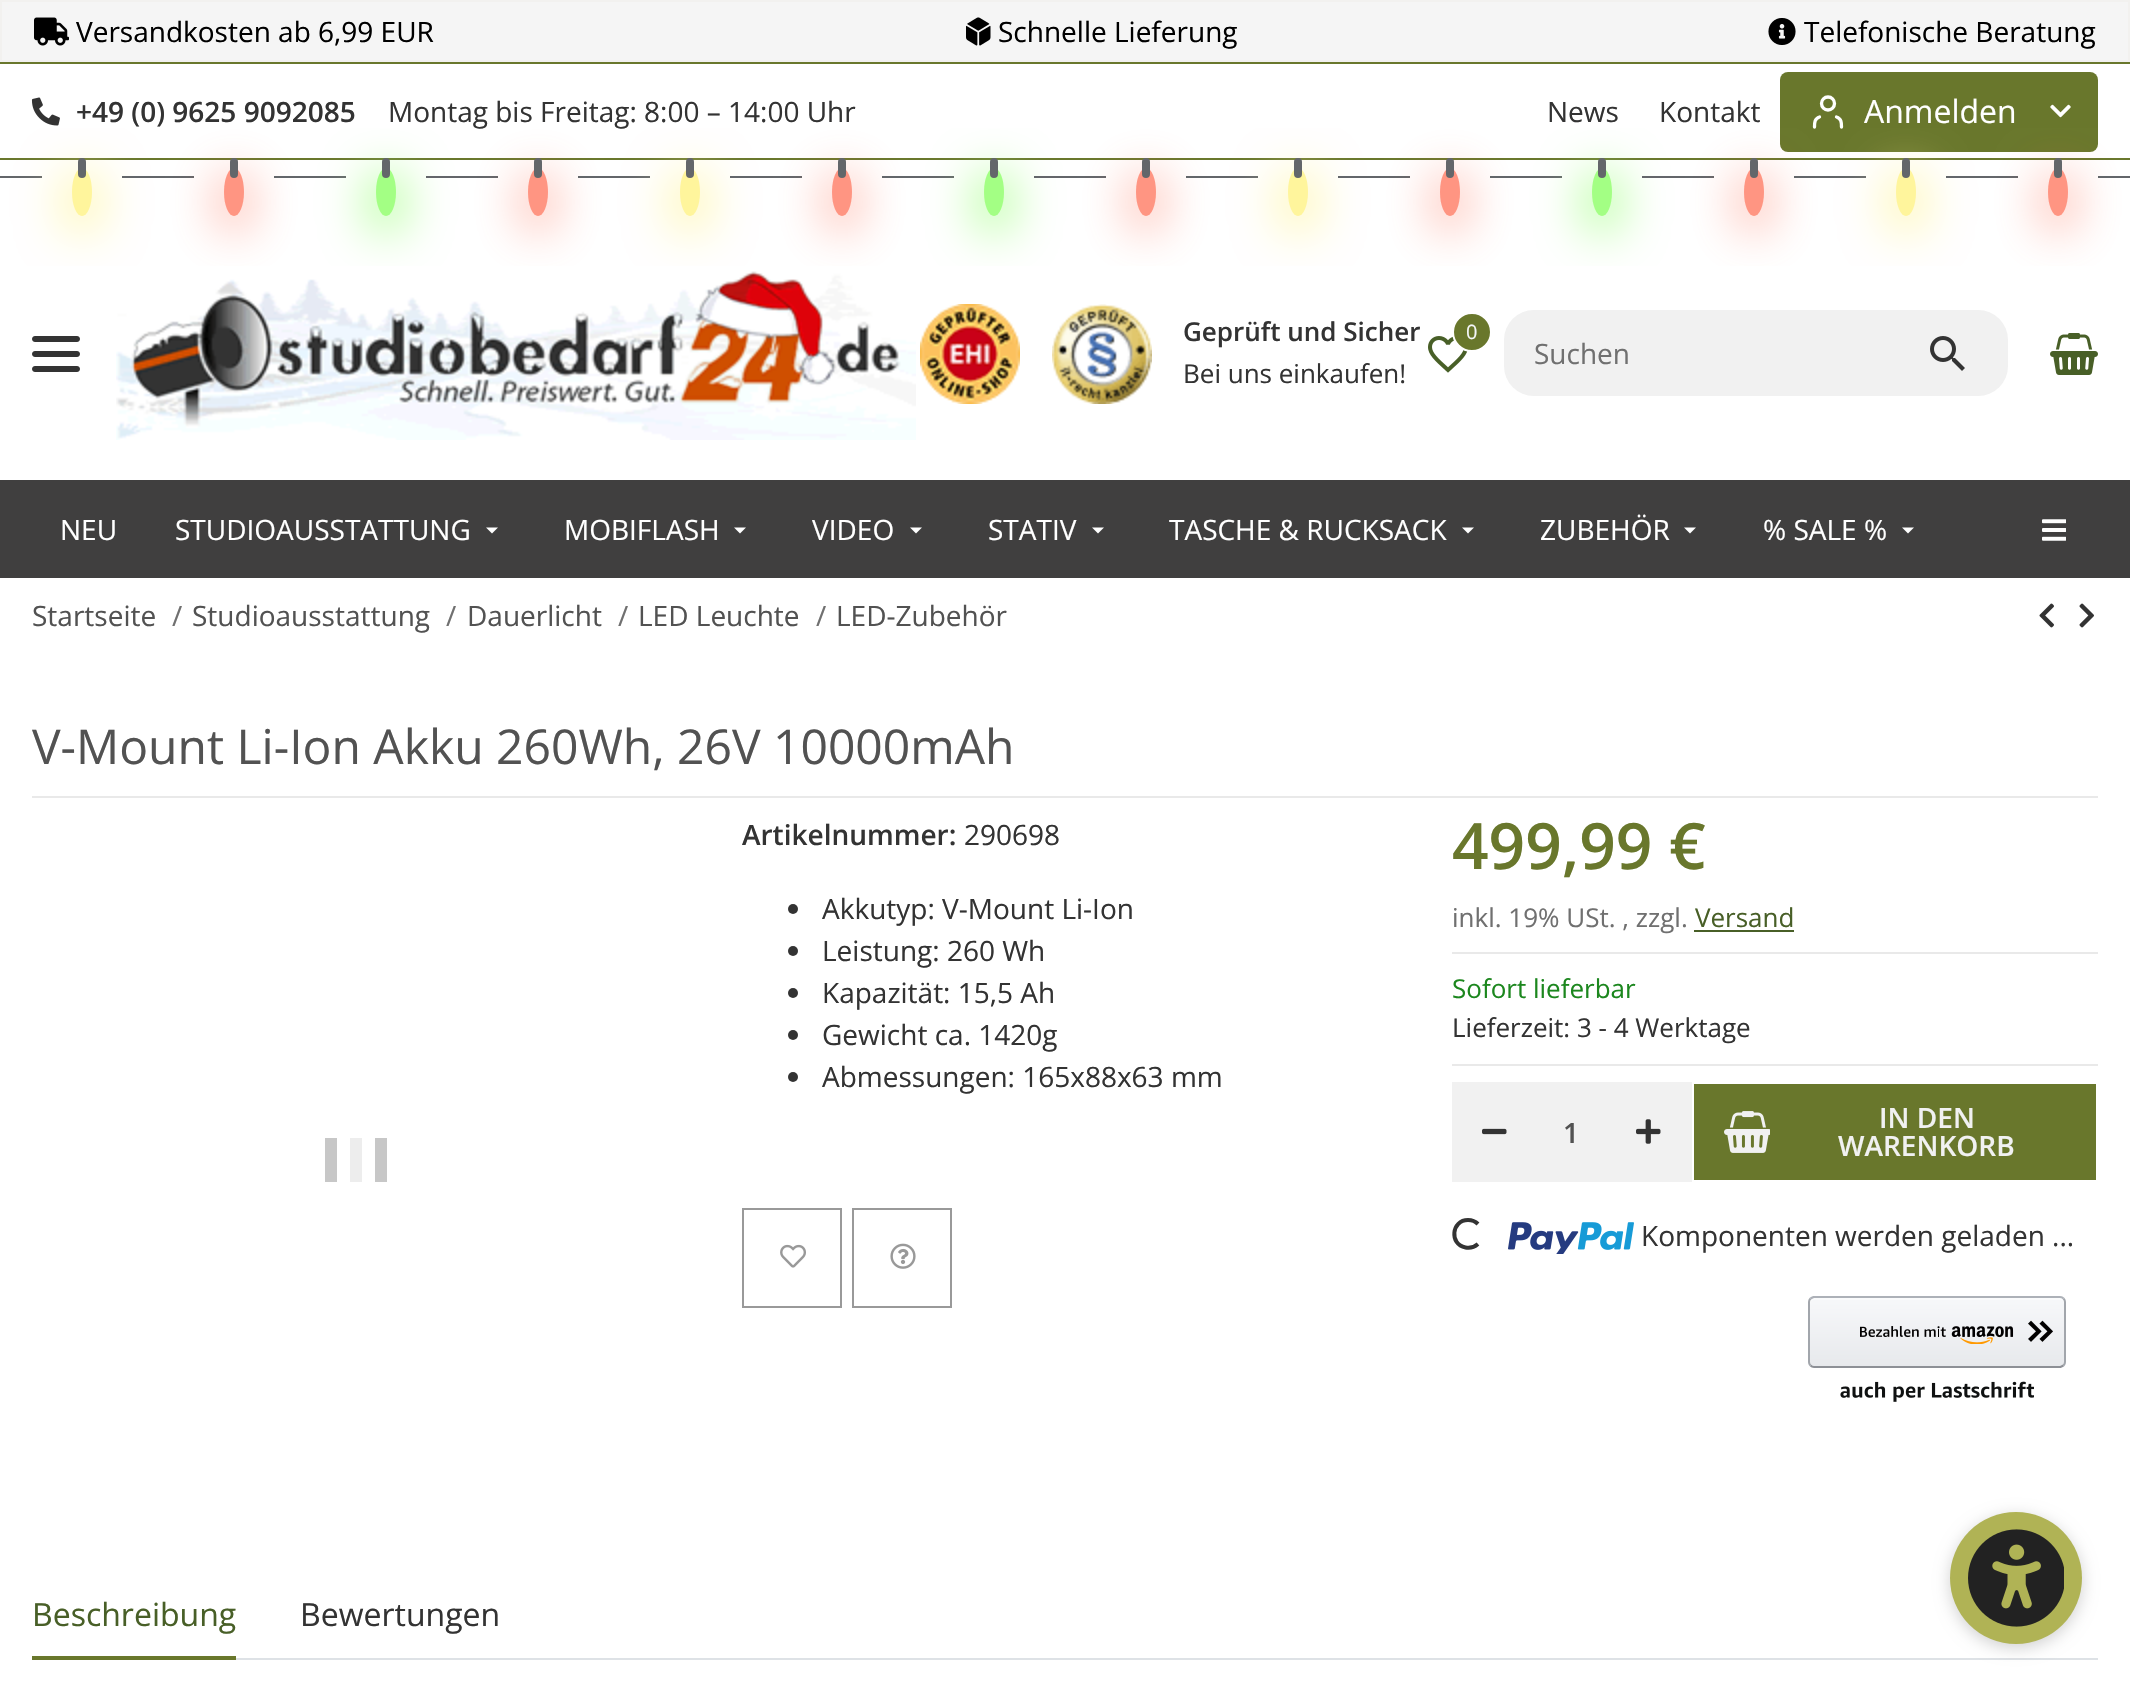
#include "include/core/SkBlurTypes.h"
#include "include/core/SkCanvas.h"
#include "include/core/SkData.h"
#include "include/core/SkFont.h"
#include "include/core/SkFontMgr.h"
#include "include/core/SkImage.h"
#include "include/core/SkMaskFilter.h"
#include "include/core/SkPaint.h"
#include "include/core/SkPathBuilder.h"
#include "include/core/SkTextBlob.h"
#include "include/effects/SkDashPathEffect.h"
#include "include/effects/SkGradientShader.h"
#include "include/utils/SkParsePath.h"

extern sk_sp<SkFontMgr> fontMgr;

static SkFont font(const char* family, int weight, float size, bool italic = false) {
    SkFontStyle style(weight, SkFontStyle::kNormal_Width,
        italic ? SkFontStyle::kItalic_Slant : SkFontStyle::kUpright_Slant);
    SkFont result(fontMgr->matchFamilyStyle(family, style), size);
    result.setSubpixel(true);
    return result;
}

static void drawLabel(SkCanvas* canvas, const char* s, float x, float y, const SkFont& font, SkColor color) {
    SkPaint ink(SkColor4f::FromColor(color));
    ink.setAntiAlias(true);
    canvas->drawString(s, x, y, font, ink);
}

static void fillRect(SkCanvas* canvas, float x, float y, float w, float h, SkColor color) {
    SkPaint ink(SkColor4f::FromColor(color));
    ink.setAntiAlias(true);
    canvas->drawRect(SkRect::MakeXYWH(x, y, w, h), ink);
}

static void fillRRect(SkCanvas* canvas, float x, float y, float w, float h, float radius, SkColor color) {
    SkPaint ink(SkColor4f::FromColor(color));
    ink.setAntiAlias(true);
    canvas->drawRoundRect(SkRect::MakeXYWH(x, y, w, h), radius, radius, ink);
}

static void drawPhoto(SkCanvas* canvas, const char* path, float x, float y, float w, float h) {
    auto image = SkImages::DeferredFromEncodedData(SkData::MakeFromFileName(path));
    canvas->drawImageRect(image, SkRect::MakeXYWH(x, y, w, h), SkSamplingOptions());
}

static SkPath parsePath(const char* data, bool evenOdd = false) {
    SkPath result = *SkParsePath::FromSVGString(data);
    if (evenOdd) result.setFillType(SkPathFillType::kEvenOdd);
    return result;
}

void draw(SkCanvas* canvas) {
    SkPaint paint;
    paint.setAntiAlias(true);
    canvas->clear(0xFFFFFFFF);
    paint.setColor(0xFFF5F5F5);
    canvas->drawRect(SkRect::MakeXYWH(1, 1, 2128, 60), paint);
    paint.setStroke(true);
    paint.setStrokeWidth(2);
    paint.setColor(0xFFF2F1EF);
    canvas->drawRect(SkRect::MakeXYWH(1, 1, 2128, 60), paint);
    drawPhoto(canvas, "assets/img1.png", 34, 17, 35, 29);
    SkFont font1 = font("Open Sans", 400, 28);
    drawLabel(canvas, "Versandkosten ab 6,99 EUR", 76, 42, font1, 0xFF000000);
    drawPhoto(canvas, "assets/img2.png", 966, 17, 25, 29);
    drawLabel(canvas, "Schnelle Lieferung", 998, 42, font1, 0xFF000000);
    drawPhoto(canvas, "assets/img3.png", 1768, 18, 28, 27);
    drawLabel(canvas, "Telefonische Beratung", 1804, 42, font1, 0xFF000000);
    fillRect(canvas, 0, 62, 2130, 2, 0xFF69772C);
    fillRect(canvas, 0, 158, 2130, 2, 0xFF69772C);
    drawPhoto(canvas, "assets/img4.png", 31, 97, 29, 29);
    SkFont font2 = font("Open Sans", 600, 28);
    drawLabel(canvas, "+49 (0) 9625 9092085", 76, 122, font2, 0xFF333333);
    drawLabel(canvas, "Montag bis Freitag: 8:00 – 14:00 Uhr", 388, 122, font1, 0xFF333333);
    drawLabel(canvas, "News", 1547, 122, font1, 0xFF333333);
    drawLabel(canvas, "Kontakt", 1659, 122, font1, 0xFF333333);
    fillRRect(canvas, 1780, 72, 318, 80, 8, 0xFF69772C);
    paint.setStrokeWidth(3.3f);
    paint.setStrokeCap(SkPaint::kRound_Cap);
    paint.setStrokeJoin(SkPaint::kRound_Join);
    paint.setColor(0xFFFFFFFF);
    canvas->drawPath(parsePath("M1841.5 127C1841.5 123 1841.5 118.5 1836.5 117M1814.5 127C1814.5 123 1814.5 118.5 1819.5 117"), paint);
    paint.setStrokeCap(SkPaint::kButt_Cap);
    paint.setStrokeJoin(SkPaint::kMiter_Join);
    canvas->drawCircle(1828, 103.5f, 6.5f, paint);
    SkFont font3 = font("Open Sans", 400, 32);
    drawLabel(canvas, "Anmelden", 1864, 123, font3, 0xFFFFFFFF);
    drawPhoto(canvas, "assets/img5.png", 2050, 104, 21, 14);
    fillRect(canvas, 0, 176, 42, 2, 0xFF63666A);
    canvas->save();
    canvas->clipRect(SkRect::MakeXYWH(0, 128, 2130, 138));
    paint.setStroke(false);
    paint.setColor(0xFFFFF59C);
    paint.setMaskFilter(SkMaskFilter::MakeBlur(kNormal_SkBlurStyle, 24));
    canvas->drawRoundRect(SkRect::MakeXYWH(66, 172, 32, 60), 16, 16, paint);
    paint.setMaskFilter(nullptr);
    canvas->restore();
    canvas->drawOval(SkRect::MakeXYWH(72, 168, 20, 48), paint);
    fillRRect(canvas, 78, 158, 8, 20, 4, 0xFF63666A);
    fillRect(canvas, 122, 176, 72, 2, 0xFF63666A);
    canvas->save();
    canvas->clipRect(SkRect::MakeXYWH(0, 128, 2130, 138));
    paint.setColor(0x80FF6347);
    paint.setMaskFilter(SkMaskFilter::MakeBlur(kNormal_SkBlurStyle, 24));
    canvas->drawRoundRect(SkRect::MakeXYWH(218, 172, 32, 60), 16, 16, paint);
    paint.setMaskFilter(nullptr);
    canvas->restore();
    paint.setColor(0xFFFF9582);
    canvas->drawOval(SkRect::MakeXYWH(224, 168, 20, 48), paint);
    fillRRect(canvas, 230, 158, 8, 20, 4, 0xFF63666A);
    fillRect(canvas, 274, 176, 72, 2, 0xFF63666A);
    canvas->save();
    canvas->clipRect(SkRect::MakeXYWH(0, 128, 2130, 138));
    paint.setColor(0xFFA3FF84);
    paint.setMaskFilter(SkMaskFilter::MakeBlur(kNormal_SkBlurStyle, 24));
    canvas->drawRoundRect(SkRect::MakeXYWH(370, 172, 32, 60), 16, 16, paint);
    paint.setMaskFilter(nullptr);
    canvas->restore();
    canvas->drawOval(SkRect::MakeXYWH(376, 168, 20, 48), paint);
    fillRRect(canvas, 382, 158, 8, 20, 4, 0xFF63666A);
    fillRect(canvas, 426, 176, 72, 2, 0xFF63666A);
    canvas->save();
    canvas->clipRect(SkRect::MakeXYWH(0, 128, 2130, 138));
    paint.setColor(0x80FF6347);
    paint.setMaskFilter(SkMaskFilter::MakeBlur(kNormal_SkBlurStyle, 24));
    canvas->drawRoundRect(SkRect::MakeXYWH(522, 172, 32, 60), 16, 16, paint);
    paint.setMaskFilter(nullptr);
    canvas->restore();
    paint.setColor(0xFFFF9582);
    canvas->drawOval(SkRect::MakeXYWH(528, 168, 20, 48), paint);
    fillRRect(canvas, 534, 158, 8, 20, 4, 0xFF63666A);
    fillRect(canvas, 578, 176, 72, 2, 0xFF63666A);
    canvas->save();
    canvas->clipRect(SkRect::MakeXYWH(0, 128, 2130, 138));
    paint.setColor(0xFFFFF59C);
    paint.setMaskFilter(SkMaskFilter::MakeBlur(kNormal_SkBlurStyle, 24));
    canvas->drawRoundRect(SkRect::MakeXYWH(674, 172, 32, 60), 16, 16, paint);
    paint.setMaskFilter(nullptr);
    canvas->restore();
    canvas->drawOval(SkRect::MakeXYWH(680, 168, 20, 48), paint);
    fillRRect(canvas, 686, 158, 8, 20, 4, 0xFF63666A);
    fillRect(canvas, 730, 176, 72, 2, 0xFF63666A);
    canvas->save();
    canvas->clipRect(SkRect::MakeXYWH(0, 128, 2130, 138));
    paint.setColor(0x80FF6347);
    paint.setMaskFilter(SkMaskFilter::MakeBlur(kNormal_SkBlurStyle, 24));
    canvas->drawRoundRect(SkRect::MakeXYWH(826, 172, 32, 60), 16, 16, paint);
    paint.setMaskFilter(nullptr);
    canvas->restore();
    paint.setColor(0xFFFF9582);
    canvas->drawOval(SkRect::MakeXYWH(832, 168, 20, 48), paint);
    fillRRect(canvas, 838, 158, 8, 20, 4, 0xFF63666A);
    fillRect(canvas, 882, 176, 72, 2, 0xFF63666A);
    canvas->save();
    canvas->clipRect(SkRect::MakeXYWH(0, 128, 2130, 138));
    paint.setColor(0xFFA3FF84);
    paint.setMaskFilter(SkMaskFilter::MakeBlur(kNormal_SkBlurStyle, 24));
    canvas->drawRoundRect(SkRect::MakeXYWH(978, 172, 32, 60), 16, 16, paint);
    paint.setMaskFilter(nullptr);
    canvas->restore();
    canvas->drawOval(SkRect::MakeXYWH(984, 168, 20, 48), paint);
    fillRRect(canvas, 990, 158, 8, 20, 4, 0xFF63666A);
    fillRect(canvas, 1034, 176, 72, 2, 0xFF63666A);
    canvas->save();
    canvas->clipRect(SkRect::MakeXYWH(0, 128, 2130, 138));
    paint.setColor(0x80FF6347);
    paint.setMaskFilter(SkMaskFilter::MakeBlur(kNormal_SkBlurStyle, 24));
    canvas->drawRoundRect(SkRect::MakeXYWH(1130, 172, 32, 60), 16, 16, paint);
    paint.setMaskFilter(nullptr);
    canvas->restore();
    paint.setColor(0xFFFF9582);
    canvas->drawOval(SkRect::MakeXYWH(1136, 168, 20, 48), paint);
    fillRRect(canvas, 1142, 158, 8, 20, 4, 0xFF63666A);
    fillRect(canvas, 1186, 176, 72, 2, 0xFF63666A);
    canvas->save();
    canvas->clipRect(SkRect::MakeXYWH(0, 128, 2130, 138));
    paint.setColor(0xFFFFF59C);
    paint.setMaskFilter(SkMaskFilter::MakeBlur(kNormal_SkBlurStyle, 24));
    canvas->drawRoundRect(SkRect::MakeXYWH(1282, 172, 32, 60), 16, 16, paint);
    paint.setMaskFilter(nullptr);
    canvas->restore();
    canvas->drawOval(SkRect::MakeXYWH(1288, 168, 20, 48), paint);
    fillRRect(canvas, 1294, 158, 8, 20, 4, 0xFF63666A);
    fillRect(canvas, 1338, 176, 72, 2, 0xFF63666A);
    canvas->save();
    canvas->clipRect(SkRect::MakeXYWH(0, 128, 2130, 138));
    paint.setColor(0x80FF6347);
    paint.setMaskFilter(SkMaskFilter::MakeBlur(kNormal_SkBlurStyle, 24));
    canvas->drawRoundRect(SkRect::MakeXYWH(1434, 172, 32, 60), 16, 16, paint);
    paint.setMaskFilter(nullptr);
    canvas->restore();
    paint.setColor(0xFFFF9582);
    canvas->drawOval(SkRect::MakeXYWH(1440, 168, 20, 48), paint);
    fillRRect(canvas, 1446, 158, 8, 20, 4, 0xFF63666A);
    fillRect(canvas, 1490, 176, 72, 2, 0xFF63666A);
    canvas->save();
    canvas->clipRect(SkRect::MakeXYWH(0, 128, 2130, 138));
    paint.setColor(0xFFA3FF84);
    paint.setMaskFilter(SkMaskFilter::MakeBlur(kNormal_SkBlurStyle, 24));
    canvas->drawRoundRect(SkRect::MakeXYWH(1586, 172, 32, 60), 16, 16, paint);
    paint.setMaskFilter(nullptr);
    canvas->restore();
    canvas->drawOval(SkRect::MakeXYWH(1592, 168, 20, 48), paint);
    fillRRect(canvas, 1598, 158, 8, 20, 4, 0xFF63666A);
    fillRect(canvas, 1642, 176, 72, 2, 0xFF63666A);
    canvas->save();
    canvas->clipRect(SkRect::MakeXYWH(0, 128, 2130, 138));
    paint.setColor(0x80FF6347);
    paint.setMaskFilter(SkMaskFilter::MakeBlur(kNormal_SkBlurStyle, 24));
    canvas->drawRoundRect(SkRect::MakeXYWH(1738, 172, 32, 60), 16, 16, paint);
    paint.setMaskFilter(nullptr);
    canvas->restore();
    paint.setColor(0xFFFF9582);
    canvas->drawOval(SkRect::MakeXYWH(1744, 168, 20, 48), paint);
    fillRRect(canvas, 1750, 158, 8, 20, 4, 0xFF63666A);
    fillRect(canvas, 1794, 176, 72, 2, 0xFF63666A);
    canvas->save();
    canvas->clipRect(SkRect::MakeXYWH(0, 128, 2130, 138));
    paint.setColor(0xFFFFF59C);
    paint.setMaskFilter(SkMaskFilter::MakeBlur(kNormal_SkBlurStyle, 24));
    canvas->drawRoundRect(SkRect::MakeXYWH(1890, 172, 32, 60), 16, 16, paint);
    paint.setMaskFilter(nullptr);
    canvas->restore();
    canvas->drawOval(SkRect::MakeXYWH(1896, 168, 20, 48), paint);
    fillRRect(canvas, 1902, 158, 8, 20, 4, 0xFF63666A);
    fillRect(canvas, 1946, 176, 72, 2, 0xFF63666A);
    canvas->save();
    canvas->clipRect(SkRect::MakeXYWH(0, 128, 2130, 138));
    paint.setColor(0x80FF6347);
    paint.setMaskFilter(SkMaskFilter::MakeBlur(kNormal_SkBlurStyle, 24));
    canvas->drawRoundRect(SkRect::MakeXYWH(2042, 172, 32, 60), 16, 16, paint);
    paint.setMaskFilter(nullptr);
    canvas->restore();
    paint.setColor(0xFFFF9582);
    canvas->drawOval(SkRect::MakeXYWH(2048, 168, 20, 48), paint);
    fillRRect(canvas, 2054, 158, 8, 20, 4, 0xFF63666A);
    fillRect(canvas, 2098, 176, 32, 2, 0xFF63666A);
    drawPhoto(canvas, "assets/img6.png", 32, 336, 48, 36);
    drawPhoto(canvas, "assets/img7.png", 116, 271, 800, 169);
    drawPhoto(canvas, "assets/img8.png", 920, 304, 100, 100);
    drawPhoto(canvas, "assets/img9.png", 1052, 304, 100, 100);
    SkFont font4 = font("Open Sans", 600, 26);
    drawLabel(canvas, "Geprüft und Sicher", 1183, 341, font4, 0xFF333333);
    SkFont font5 = font("Open Sans", 400, 26);
    drawLabel(canvas, "Bei uns einkaufen!", 1183, 383, font5, 0xFF333333);
    drawPhoto(canvas, "assets/img10.png", 1428, 336, 40, 37);
    paint.setColor(0xFF69772C);
    canvas->drawCircle(1472, 332, 19, paint);
    paint.setStroke(true);
    paint.setStrokeWidth(2);
    paint.setColor(0xFFFFFFFF);
    canvas->drawCircle(1472, 332, 19, paint);
    SkFont font6 = font("Open Sans", 400, 20);
    drawLabel(canvas, "0", 1466, 339, font6, 0xFFF5F7FA);
    fillRRect(canvas, 1504, 310, 504, 86, 30, 0xFFF1F1F1);
    drawLabel(canvas, "Suchen", 1534, 364, font1, 0xFF707070);
    drawPhoto(canvas, "assets/img11.png", 1930, 336, 35, 35);
    drawPhoto(canvas, "assets/img12.png", 2050, 333, 48, 42);
    fillRect(canvas, 0, 480, 2130, 98, 0xFF403F3F);
    drawLabel(canvas, "NEU", 60, 540, font1, 0xFFFFFFFF);
    drawLabel(canvas, "STUDIOAUSSTATTUNG", 175, 540, font1, 0xFFFFFFFF);
    paint.setStroke(false);
    canvas->drawPath(parsePath("M486 527.5H498L492 533.5Z"), paint);
    drawLabel(canvas, "MOBIFLASH", 564, 540, font1, 0xFFFFFFFF);
    canvas->drawPath(parsePath("M734 527.5H746L740 533.5Z"), paint);
    drawLabel(canvas, "VIDEO", 812, 540, font1, 0xFFFFFFFF);
    canvas->drawPath(parsePath("M910 527.5H922L916 533.5Z"), paint);
    drawLabel(canvas, "STATIV", 988, 540, font1, 0xFFFFFFFF);
    canvas->drawPath(parsePath("M1092 527.5H1104L1098 533.5Z"), paint);
    drawLabel(canvas, "TASCHE & RUCKSACK", 1169, 540, font1, 0xFFFFFFFF);
    canvas->drawPath(parsePath("M1462 527.5H1474L1468 533.5Z"), paint);
    drawLabel(canvas, "ZUBEHÖR", 1540, 540, font1, 0xFFFFFFFF);
    canvas->drawPath(parsePath("M1684 527.5H1696L1690 533.5Z"), paint);
    drawLabel(canvas, "% SALE %", 1763, 540, font1, 0xFFFFFFFF);
    canvas->drawPath(parsePath("M1902 527.5H1914L1908 533.5Z"), paint);
    drawPhoto(canvas, "assets/img13.png", 2042, 519, 24, 22);
    drawLabel(canvas, "Startseite", 32, 626, font1, 0xFF525252);
    drawLabel(canvas, "/", 172, 626, font1, 0xFF707070);
    drawLabel(canvas, "Studioausstattung", 192, 626, font1, 0xFF525252);
    drawLabel(canvas, "/", 446, 626, font1, 0xFF707070);
    drawLabel(canvas, "Dauerlicht", 467, 626, font1, 0xFF525252);
    drawLabel(canvas, "/", 618, 626, font1, 0xFF707070);
    drawLabel(canvas, "LED Leuchte", 638, 626, font1, 0xFF525252);
    drawLabel(canvas, "/", 816, 626, font1, 0xFF707070);
    drawLabel(canvas, "LED-Zubehör", 836, 626, font1, 0xFF525252);
    drawPhoto(canvas, "assets/img14.png", 2039, 603, 15, 25);
    drawPhoto(canvas, "assets/img15.png", 2079, 603, 15, 25);
    fillRect(canvas, 32, 796, 2066, 2, 0xFFE9E9E9);
    SkFont font7 = font("Open Sans", 400, 48);
    drawLabel(canvas, "V-Mount Li-Ion Akku 260Wh, 26V 10000mAh", 32, 764, font7, 0xFF525252);
    drawLabel(canvas, "Artikelnummer:", 742, 845, font2, 0xFF333333);
    drawLabel(canvas, "290698", 964, 845, font1, 0xFF333333);
    paint.setColor(0xFF333333);
    canvas->drawCircle(793, 909, 5, paint);
    drawLabel(canvas, "Akkutyp: V-Mount Li-Ion", 822, 919, font1, 0xFF333333);
    canvas->drawCircle(793, 951, 5, paint);
    drawLabel(canvas, "Leistung: 260 Wh", 822, 961, font1, 0xFF333333);
    canvas->drawCircle(793, 993, 5, paint);
    drawLabel(canvas, "Kapazität: 15,5 Ah", 822, 1003, font1, 0xFF333333);
    canvas->drawCircle(793, 1035, 5, paint);
    drawLabel(canvas, "Gewicht ca. 1420g", 822, 1045, font1, 0xFF333333);
    canvas->drawCircle(793, 1077, 5, paint);
    drawLabel(canvas, "Abmessungen: 165x88x63 mm", 822, 1087, font1, 0xFF333333);
    paint.setStroke(true);
    paint.setColor(0xFF999999);
    canvas->drawRect(SkRect::MakeXYWH(743, 1209, 98, 98), paint);
    drawPhoto(canvas, "assets/img16.png", 780, 1244, 26, 24);
    canvas->drawRect(SkRect::MakeXYWH(853, 1209, 98, 98), paint);
    drawPhoto(canvas, "assets/img17.png", 890, 1243, 26, 26);
    fillRect(canvas, 1452, 952, 646, 2, 0xFFE9E9E9);
    SkFont font8 = font("Open Sans", 600, 64);
    drawLabel(canvas, "499,99 €", 1452, 869, font8, 0xFF69772C);
    drawLabel(canvas, "inkl. 19% USt. , zzgl.", 1452, 927, font5, 0xFF707070);
    drawLabel(canvas, "Versand", 1695, 927, font5, 0xFF485F27);
    fillRect(canvas, 1694, 930, 100, 2, 0xFF485F27);
    fillRect(canvas, 1452, 1064, 646, 2, 0xFFE9E9E9);
    drawLabel(canvas, "Sofort lieferbar", 1452, 998, font5, 0xFF1C871E);
    drawLabel(canvas, "Lieferzeit: 3 - 4 Werktage", 1452, 1037, font5, 0xFF333333);
    fillRect(canvas, 1452, 1082, 240, 100, 0xFFF1F1F1);
    drawPhoto(canvas, "assets/img18.png", 1482, 1128, 25, 7);
    drawLabel(canvas, "1", 1563, 1143, font2, 0xFF525252);
    drawPhoto(canvas, "assets/img19.png", 1636, 1119, 25, 25);
    fillRect(canvas, 1694, 1084, 402, 96, 0xFF69772C);
    drawPhoto(canvas, "assets/img20.png", 1724, 1111, 46, 42);
    drawLabel(canvas, "IN DEN", 1879, 1128, font2, 0xFFF1F1F1);
    drawLabel(canvas, "WARENKORB", 1838, 1156, font2, 0xFFF1F1F1);
    paint.setStrokeWidth(4);
    paint.setColor(0xFF333333);
    canvas->drawPath(parsePath("M1478 1244C1474.5 1247 1470 1248.5 1465.5 1247.5C1449 1244.5 1451.5 1220 1468 1220C1471.5 1220 1475.5 1221.5 1478 1224"), paint);
    drawPhoto(canvas, "assets/img21.png", 1508, 1222, 126, 32);
    drawLabel(canvas, "Komponenten werden geladen ...", 1641, 1246, font1, 0xFF333333);
    canvas->save();
    canvas->clipPath(parsePath("M1814 1296H2060C2063.5 1296 2066 1298.5 2066 1302V1362C2066 1365.5 2063.5 1368 2060 1368H1814C1810.5 1368 1808 1365.5 1808 1362V1302C1808 1298.5 1810.5 1296 1814 1296Z"), true);
    paint.setStroke(false);
    {
        const SkColor colors[] = {0xFFF7F8FA, 0xFFE7E9EC};
        const float stops[] = {0, 1};
        const SkPoint ends[] = {{1937, 1230}, {1937, 1298}};
        paint.setShader(SkGradientShader::MakeLinear(ends, colors, stops, 2, SkTileMode::kClamp));
        paint.setAlpha(255);
    }
    canvas->drawRect(SkRect::MakeXYWH(1808, 1296, 258, 2), paint);
    {
        const SkColor colors[] = {0xFFF7F8FA, 0xFFE7E9EC};
        const float stops[] = {0, 1};
        const SkPoint ends[] = {{1937, 1298}, {1937, 1366}};
        paint.setShader(SkGradientShader::MakeLinear(ends, colors, stops, 2, SkTileMode::kClamp));
        paint.setAlpha(255);
    }
    canvas->drawRect(SkRect::MakeXYWH(1808, 1298, 258, 68), paint);
    {
        const SkColor colors[] = {0xFFF7F8FA, 0xFFE7E9EC};
        const float stops[] = {0, 1};
        const SkPoint ends[] = {{1937, 1366}, {1937, 1434}};
        paint.setShader(SkGradientShader::MakeLinear(ends, colors, stops, 2, SkTileMode::kClamp));
        paint.setAlpha(255);
    }
    canvas->drawRect(SkRect::MakeXYWH(1808, 1366, 258, 2), paint);
    canvas->restore();
    paint.setShader(nullptr);
    paint.setColor(0xFFFAFBFC);
    canvas->drawPath(parsePath("M1814 1300H2060C2062 1300 2064 1302 2064 1304V1302C2064 1300 2062 1298 2060 1298H1814C1812 1298 1810 1300 1810 1302V1304C1810 1302 1812 1300 1814 1300Z"), paint);
    paint.setStroke(true);
    paint.setStrokeWidth(2);
    paint.setColor(0xFFADB1B8);
    canvas->drawPath(parsePath("M1810.5 1298.5L1813.5 1297H2060C2061.5 1297 2062.5 1297.5 2063.5 1298.5"), paint);
    paint.setColor(0xFFA2A6AC);
    canvas->drawPath(parsePath("M2063.5 1298.5C2064.5 1299.5 2065 1300.5 2065 1302V1362C2065 1363.5 2064.5 1364.5 2063.5 1365.5"), paint);
    paint.setColor(0xFF8D9096);
    canvas->drawPath(parsePath("M2063.5 1365.5L2060.5 1367H1814C1812.5 1367 1811.5 1366.5 1810.5 1365.5"), paint);
    paint.setColor(0xFFA2A6AC);
    canvas->drawPath(parsePath("M1810.5 1365.5C1809.5 1364.5 1809 1363.5 1809 1362V1302C1809 1300.5 1809.5 1299.5 1810.5 1298.5"), paint);
    drawPhoto(canvas, "assets/img22.png", 1860, 1326, 154, 18);
    drawPhoto(canvas, "assets/img23.png", 2028, 1320, 25, 22);
    drawPhoto(canvas, "assets/img24.png", 1840, 1381, 194, 21);
    fillRect(canvas, 325, 1138, 12, 44, 0xFFC7C7C7);
    fillRect(canvas, 350, 1138, 12, 44, 0xFFEDEDED);
    fillRect(canvas, 375, 1138, 12, 44, 0xFFC7C7C7);
    fillRect(canvas, 236, 1658, 1862, 2, 0xFFDEE2E6);
    drawLabel(canvas, "Beschreibung", 32, 1626, font3, 0xFF485F27);
    fillRect(canvas, 32, 1656, 204, 4, 0xFF69772C);
    drawLabel(canvas, "Bewertungen", 300, 1626, font3, 0xFF333333);
    paint.setStroke(false);
    paint.setColor(0x2E000000);
    paint.setMaskFilter(SkMaskFilter::MakeBlur(kNormal_SkBlurStyle, 8));
    canvas->drawRoundRect(SkRect::MakeXYWH(1950, 1516, 132, 132), 66, 66, paint);
    paint.setMaskFilter(nullptr);
    paint.setColor(0xFFB0B355);
    canvas->drawCircle(2016, 1578, 66, paint);
    drawPhoto(canvas, "assets/img25.png", 1968, 1529, 96, 98);
}
